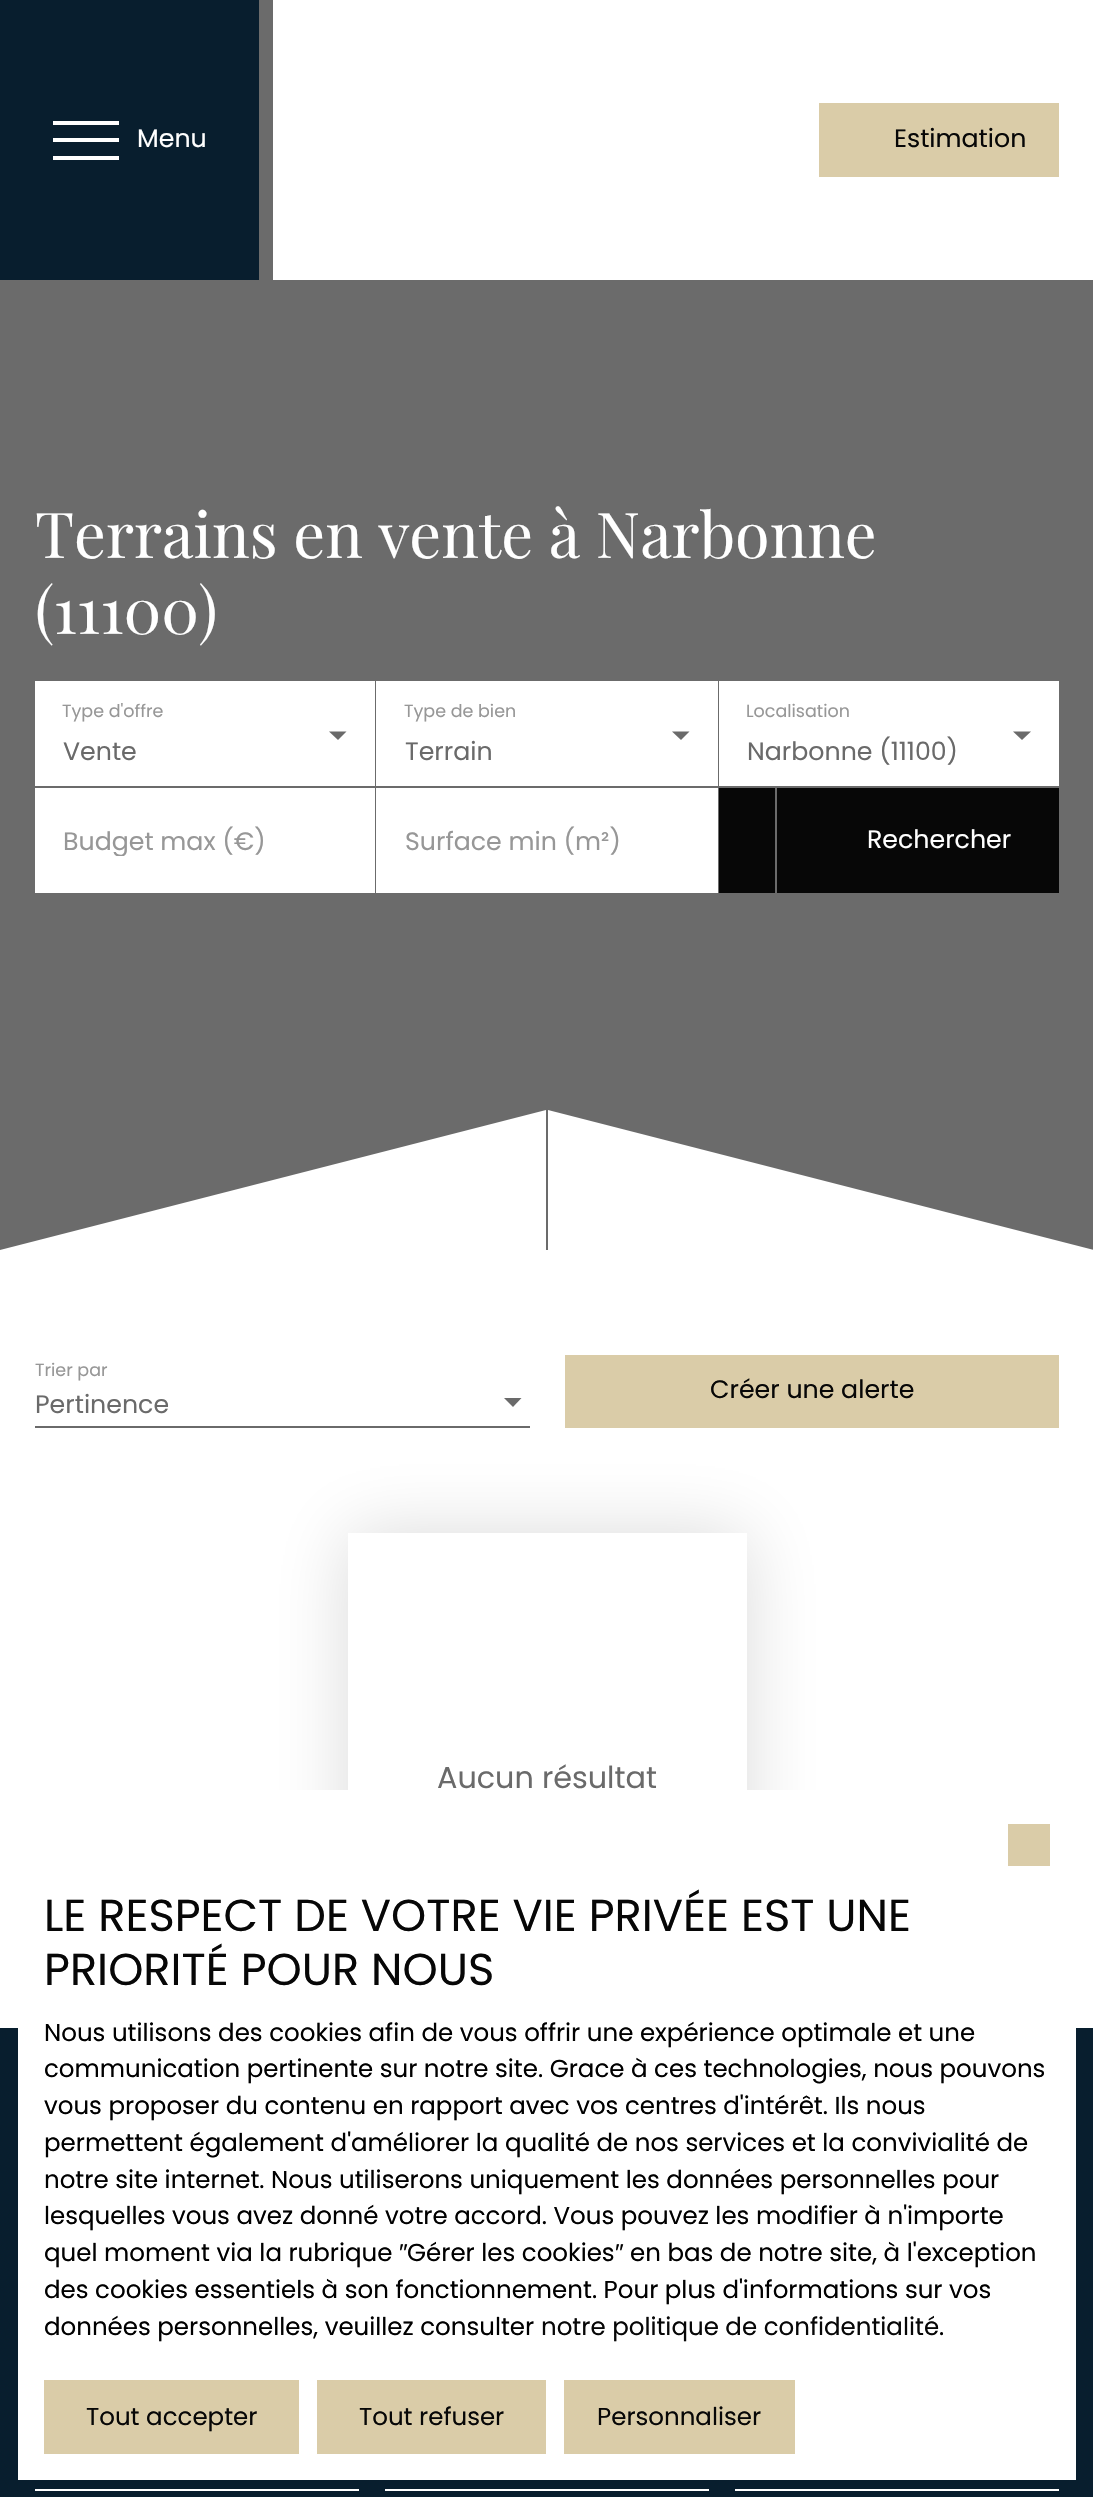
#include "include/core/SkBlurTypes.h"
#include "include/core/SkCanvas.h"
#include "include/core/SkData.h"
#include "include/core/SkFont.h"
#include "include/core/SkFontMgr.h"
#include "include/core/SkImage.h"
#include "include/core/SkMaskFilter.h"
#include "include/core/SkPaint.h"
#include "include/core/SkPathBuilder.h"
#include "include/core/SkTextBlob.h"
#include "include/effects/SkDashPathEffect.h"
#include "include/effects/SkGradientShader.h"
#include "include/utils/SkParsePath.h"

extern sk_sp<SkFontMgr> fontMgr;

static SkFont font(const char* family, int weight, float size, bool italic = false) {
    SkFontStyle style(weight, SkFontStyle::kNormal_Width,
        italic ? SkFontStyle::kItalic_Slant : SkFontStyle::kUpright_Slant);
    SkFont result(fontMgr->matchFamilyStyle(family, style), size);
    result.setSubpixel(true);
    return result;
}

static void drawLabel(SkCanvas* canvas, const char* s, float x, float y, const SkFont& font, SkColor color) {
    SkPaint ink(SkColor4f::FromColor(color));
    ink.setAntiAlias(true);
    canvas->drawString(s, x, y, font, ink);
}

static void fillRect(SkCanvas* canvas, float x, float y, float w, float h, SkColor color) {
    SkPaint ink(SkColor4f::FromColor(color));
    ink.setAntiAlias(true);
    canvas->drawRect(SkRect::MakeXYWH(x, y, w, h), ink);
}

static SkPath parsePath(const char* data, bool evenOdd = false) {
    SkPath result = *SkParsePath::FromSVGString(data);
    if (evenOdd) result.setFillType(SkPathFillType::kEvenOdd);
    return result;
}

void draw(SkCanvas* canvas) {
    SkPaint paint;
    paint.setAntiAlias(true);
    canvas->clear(0xFFFFFFFF);
    fillRect(canvas, 0, 0, 1093, 1250, 0xFF6B6B6B);
    fillRect(canvas, 273, 0, 820, 280, 0xFFFFFFFF);
    fillRect(canvas, 0, 0, 259, 280, 0xFF081E2E);
    fillRect(canvas, 53, 121, 66, 4, 0xFFFFFFFF);
    fillRect(canvas, 53, 138, 66, 4, 0xFFFFFFFF);
    fillRect(canvas, 53, 156, 66, 4, 0xFFFFFFFF);
    SkFont font1 = font("Poppins", 400, 25.25f);
    drawLabel(canvas, "Menu", 137, 147, font1, 0xFFFFFFFF);
    fillRect(canvas, 819, 103, 240, 74, 0xFFDACCA8);
    drawLabel(canvas, "Estimation", 894, 147, font1, 0xFF070707);
    SkFont font2 = font("Playfair Display", 400, 63);
    drawLabel(canvas, "Terrains en vente à Narbonne", 35, 558, font2, 0xFFFFFFFF);
    drawLabel(canvas, "(11100)", 35, 634, font2, 0xFFFFFFFF);
    fillRect(canvas, 35, 681, 340, 105, 0xFFFFFFFF);
    SkFont font3 = font("Poppins", 400, 17.5f);
    drawLabel(canvas, "Type d'offre", 62, 717, font3, 0xFF979797);
    paint.setColor(0xFF6A6A6A);
    canvas->drawPath(parsePath("M329 731.5H346.5L338 740Z"), paint);
    drawLabel(canvas, "Vente", 63, 760, font1, 0xFF6A6A6A);
    fillRect(canvas, 376, 681, 342, 105, 0xFFFFFFFF);
    drawLabel(canvas, "Type de bien", 404, 717, font3, 0xFF979797);
    canvas->drawPath(parsePath("M672 731.5H689.5L681 740Z"), paint);
    drawLabel(canvas, "Terrain", 405, 760, font1, 0xFF6A6A6A);
    fillRect(canvas, 719, 681, 340, 105, 0xFFFFFFFF);
    drawLabel(canvas, "Localisation", 746, 717, font3, 0xFF979797);
    drawLabel(canvas, "Narbonne (11100)", 747, 760, font1, 0xFF6A6A6A);
    canvas->drawPath(parsePath("M1013 731.5H1031L1022 740Z"), paint);
    fillRect(canvas, 35, 788, 340, 105, 0xFFFFFFFF);
    canvas->save();
    canvas->clipRect(SkRect::MakeXYWH(63, 824, 284, 32));
    drawLabel(canvas, "Budget max (€)", 63, 850, font1, 0xFF979797);
    canvas->restore();
    fillRect(canvas, 376, 788, 342, 105, 0xFFFFFFFF);
    drawLabel(canvas, "Surface min (m²)", 405, 850, font1, 0xFF979797);
    fillRect(canvas, 719, 788, 56, 105, 0xFF070707);
    fillRect(canvas, 777, 788, 282, 105, 0xFF070707);
    drawLabel(canvas, "Rechercher", 867, 848, font1, 0xFFFFFFFF);
    paint.setColor(0xFFFFFFFF);
    canvas->drawPath(parsePath("M546 1250H0L546 1110Z"), paint);
    canvas->drawPath(parsePath("M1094 1250H548V1110Z"), paint);
    fillRect(canvas, 35, 1426, 495, 2, 0xFF6A6A6A);
    drawLabel(canvas, "Trier par", 35, 1376, font3, 0xFF979797);
    drawLabel(canvas, "Pertinence", 35, 1413, font1, 0xFF6A6A6A);
    paint.setColor(0xFF6A6A6A);
    canvas->drawPath(parsePath("M504 1398H521.5L513 1407Z"), paint);
    fillRect(canvas, 565, 1355, 494, 73, 0xFFDACCA8);
    drawLabel(canvas, "Créer une alerte", 710, 1398, font1, 0xFF070707);
    paint.setColor(0x26080808);
    paint.setMaskFilter(SkMaskFilter::MakeBlur(kNormal_SkBlurStyle, 35));
    canvas->drawRect(SkRect::MakeXYWH(348, 1533, 399, 355), paint);
    paint.setMaskFilter(nullptr);
    fillRect(canvas, 348, 1533, 399, 257, 0xFFFFFFFF);
    SkFont font4 = font("Poppins", 400, 30.25f);
    drawLabel(canvas, "Aucun résultat", 437, 1788, font4, 0xFF6A6A6A);
    fillRect(canvas, 0, 2028, 1093, 469, 0xFF081E2E);
    fillRect(canvas, 35, 2489, 324, 2, 0xFFFFFFFF);
    fillRect(canvas, 385, 2489, 324, 2, 0xFFFFFFFF);
    fillRect(canvas, 735, 2489, 324, 2, 0xFFFFFFFF);
    fillRect(canvas, 18, 1790, 1058, 690, 0xFFFFFFFF);
    fillRect(canvas, 1008, 1824, 42, 42, 0xFFDACCA8);
    SkFont font5 = font("Poppins", 400, 44.75f);
    drawLabel(canvas, "LE RESPECT DE VOTRE VIE PRIVÉE EST UNE", 44, 1931, font5, 0xFF070707);
    drawLabel(canvas, "PRIORITÉ POUR NOUS", 44, 1985, font5, 0xFF070707);
    SkFont font6 = font("Poppins", 400, 24.5f);
    drawLabel(canvas, "Nous utilisons des cookies afin de vous offrir une expérience optimale et une", 44, 2041, font6, 0xFF000000);
    drawLabel(canvas, "communication pertinente sur notre site. Grace à ces technologies, nous pouvons", 44, 2077, font6, 0xFF000000);
    drawLabel(canvas, "vous proposer du contenu en rapport avec vos centres d'intérêt. Ils nous", 44, 2114, font6, 0xFF000000);
    drawLabel(canvas, "permettent également d'améliorer la qualité de nos services et la convivialité de", 44, 2151, font6, 0xFF000000);
    drawLabel(canvas, "notre site internet. Nous utiliserons uniquement les données personnelles pour", 44, 2188, font6, 0xFF000000);
    drawLabel(canvas, "lesquelles vous avez donné votre accord. Vous pouvez les modifier à n'importe", 44, 2224, font6, 0xFF000000);
    drawLabel(canvas, "quel moment via la rubrique", 44, 2261, font6, 0xFF000000);
    SkFont font7 = font("Liberation Sans", 400, 24.5f);
    drawLabel(canvas, "″", 399, 2261, font7, 0xFF000000);
    drawLabel(canvas, "Gérer les cookies", 407, 2261, font6, 0xFF000000);
    drawLabel(canvas, "″", 615, 2261, font7, 0xFF000000);
    drawLabel(canvas, "en bas de notre site, à l'exception", 630, 2261, font6, 0xFF000000);
    drawLabel(canvas, "des cookies essentiels à son fonctionnement. Pour plus d'informations sur vos", 44, 2298, font6, 0xFF000000);
    drawLabel(canvas, "données personnelles, veuillez consulter", 44, 2335, font6, 0xFF000000);
    drawLabel(canvas, "notre politique de confidentialité", 541, 2335, font6, 0xFF070707);
    drawLabel(canvas, ".", 939, 2335, font6, 0xFF000000);
    fillRect(canvas, 44, 2380, 255, 74, 0xFFDACCA8);
    drawLabel(canvas, "Tout accepter", 86, 2425, font6, 0xFF070707);
    fillRect(canvas, 317, 2380, 229, 74, 0xFFDACCA8);
    drawLabel(canvas, "Tout refuser", 359, 2425, font6, 0xFF070707);
    fillRect(canvas, 564, 2380, 231, 74, 0xFFDACCA8);
    drawLabel(canvas, "Personnaliser", 597, 2425, font6, 0xFF070707);
}
